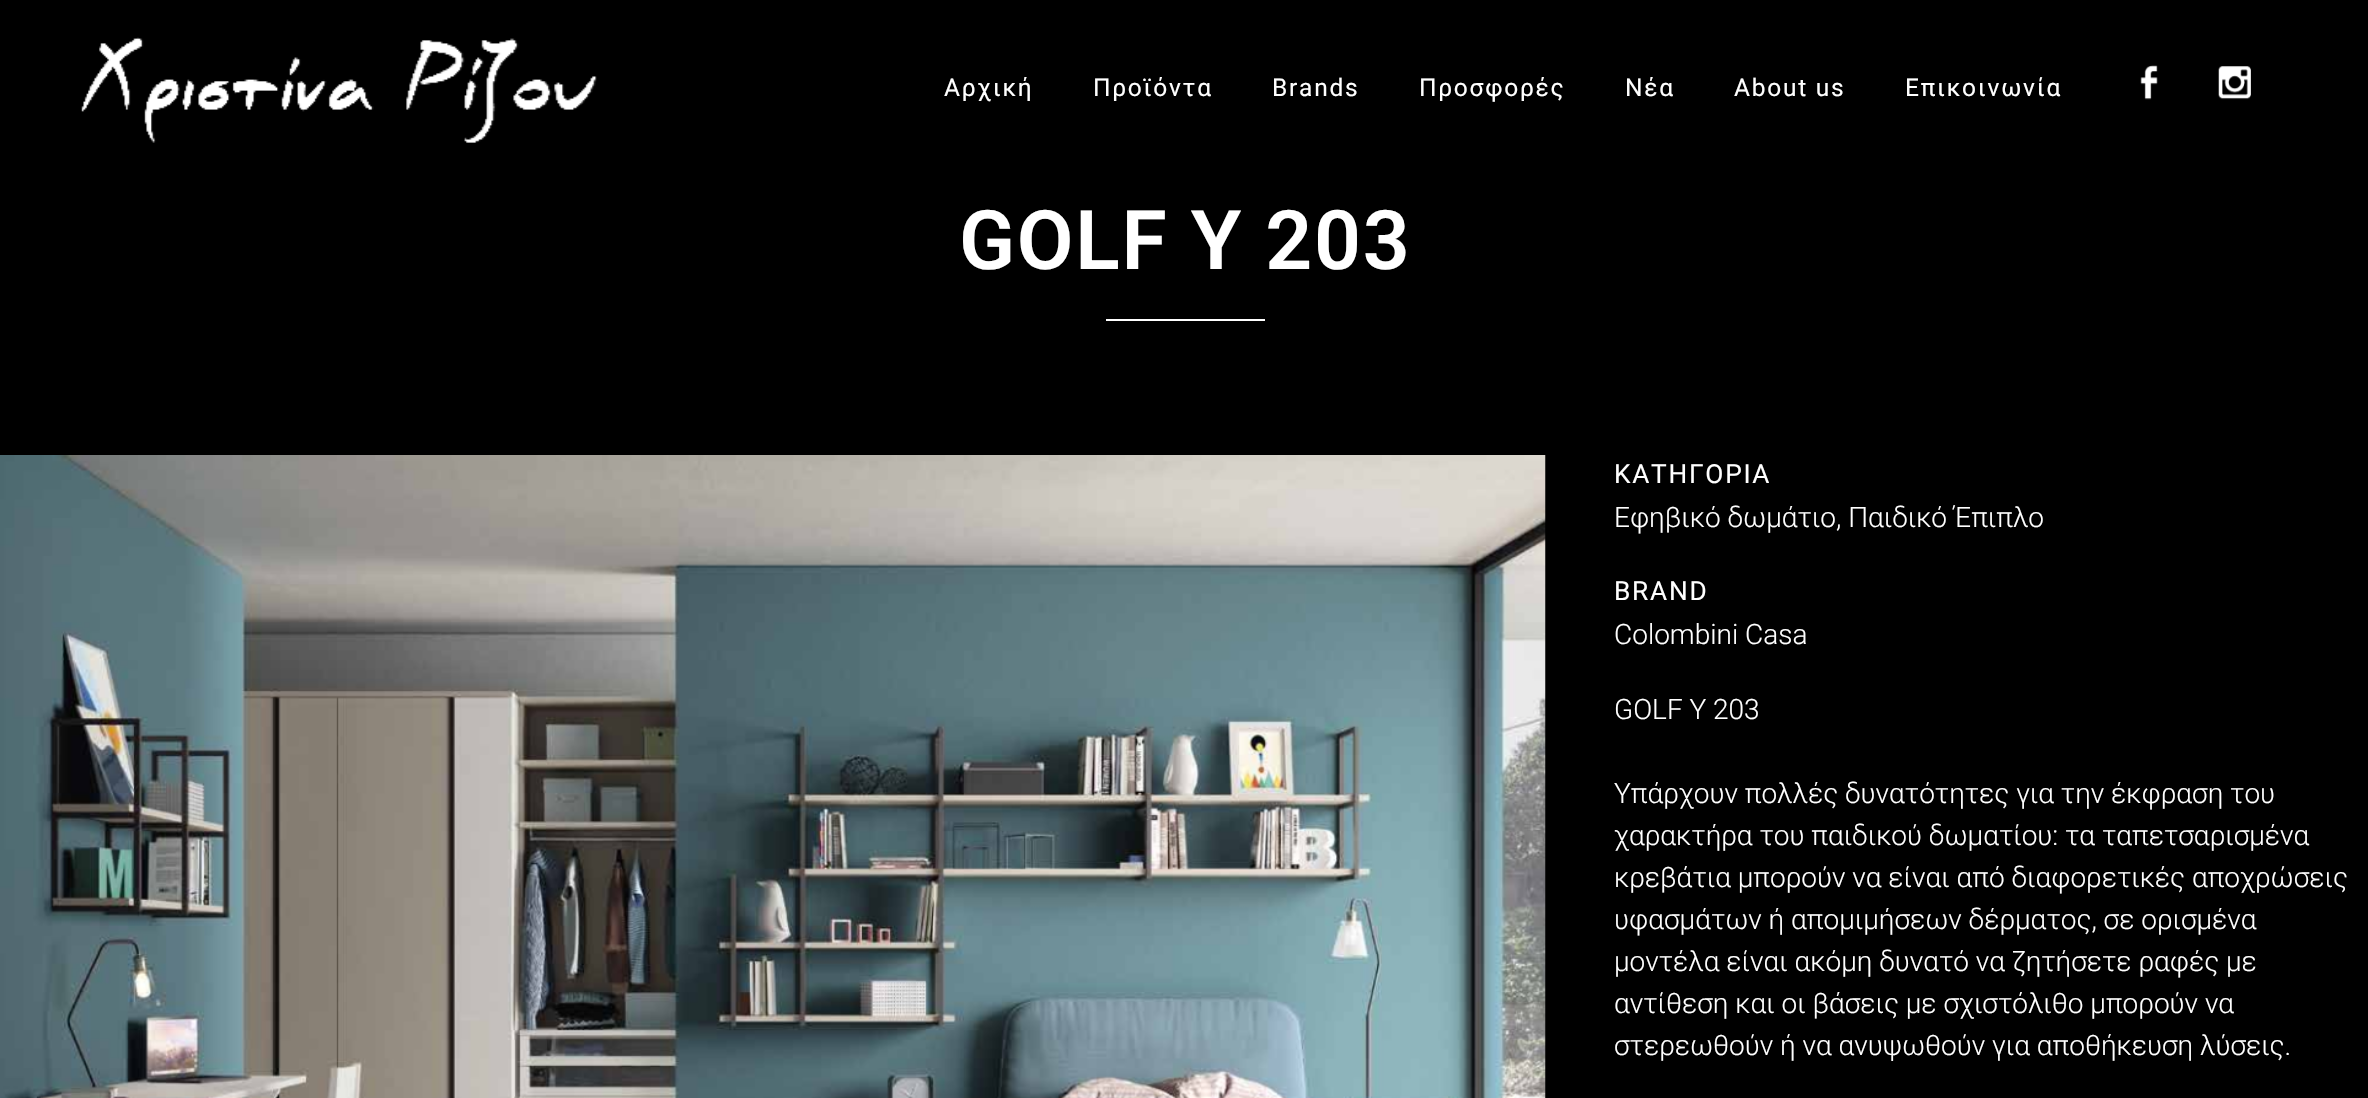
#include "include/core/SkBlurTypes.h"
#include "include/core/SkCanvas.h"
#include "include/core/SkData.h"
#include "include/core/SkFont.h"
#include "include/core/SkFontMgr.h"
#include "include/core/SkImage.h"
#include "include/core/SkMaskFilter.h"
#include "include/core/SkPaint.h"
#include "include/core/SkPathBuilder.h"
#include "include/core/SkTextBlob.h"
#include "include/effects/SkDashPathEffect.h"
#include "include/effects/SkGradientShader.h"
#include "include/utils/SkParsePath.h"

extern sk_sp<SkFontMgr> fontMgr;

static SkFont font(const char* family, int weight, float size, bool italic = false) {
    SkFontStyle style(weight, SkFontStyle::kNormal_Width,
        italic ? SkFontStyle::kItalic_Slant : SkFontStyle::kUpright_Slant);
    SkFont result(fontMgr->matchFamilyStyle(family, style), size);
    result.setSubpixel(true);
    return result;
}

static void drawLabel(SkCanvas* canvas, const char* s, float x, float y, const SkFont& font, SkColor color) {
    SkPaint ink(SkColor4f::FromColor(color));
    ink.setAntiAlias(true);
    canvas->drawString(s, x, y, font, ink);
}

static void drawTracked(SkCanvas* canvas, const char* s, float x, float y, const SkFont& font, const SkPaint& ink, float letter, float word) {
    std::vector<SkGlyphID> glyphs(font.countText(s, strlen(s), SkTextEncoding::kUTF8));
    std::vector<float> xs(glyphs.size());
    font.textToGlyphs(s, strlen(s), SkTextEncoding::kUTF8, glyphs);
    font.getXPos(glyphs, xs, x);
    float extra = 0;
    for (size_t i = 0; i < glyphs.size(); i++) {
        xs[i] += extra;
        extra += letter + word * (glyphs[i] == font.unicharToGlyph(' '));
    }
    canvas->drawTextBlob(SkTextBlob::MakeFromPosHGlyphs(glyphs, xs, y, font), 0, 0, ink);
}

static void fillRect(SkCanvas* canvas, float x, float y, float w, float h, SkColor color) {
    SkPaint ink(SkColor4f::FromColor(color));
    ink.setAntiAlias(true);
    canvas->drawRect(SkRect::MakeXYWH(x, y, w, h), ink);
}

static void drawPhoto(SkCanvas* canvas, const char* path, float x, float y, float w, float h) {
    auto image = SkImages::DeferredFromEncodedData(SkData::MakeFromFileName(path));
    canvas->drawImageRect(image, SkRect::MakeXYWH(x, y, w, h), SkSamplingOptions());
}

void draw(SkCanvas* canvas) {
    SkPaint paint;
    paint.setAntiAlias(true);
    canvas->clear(0xFF000000);
    drawPhoto(canvas, "assets/img1.png", 81, 37, 516, 106);
    SkFont font1 = font("Roboto", 400, 24.5f);
    paint.setColor(0xFFFFFFFF);
    drawTracked(canvas, "Αρχική", 944, 96, font1, paint, 1.75f, 0);
    drawTracked(canvas, "Προϊόντα", 1093, 96, font1, paint, 1.75f, 0);
    drawTracked(canvas, "Brands", 1272, 96, font1, paint, 1.75f, 0);
    drawTracked(canvas, "Προσφορές", 1419, 96, font1, paint, 1.75f, 0);
    drawTracked(canvas, "Νέα", 1625, 96, font1, paint, 1.75f, 0);
    drawTracked(canvas, "About us", 1734, 96, font1, paint, 1.75f, 0);
    drawTracked(canvas, "Επικοινωνία", 1905, 96, font1, paint, 1.75f, 0);
    drawPhoto(canvas, "assets/img2.png", 2140, 65, 18, 35);
    drawPhoto(canvas, "assets/img3.png", 2218, 66, 33, 34);
    SkFont font2 = font("Roboto", 600, 82.25f);
    drawTracked(canvas, "GOLF Y 203", 959, 269, font2, paint, 1.75f, 0);
    fillRect(canvas, 1106, 319, 159, 2, 0xFFFFFFFF);
    drawPhoto(canvas, "assets/img4.png", 0, 455, 1546, 643);
    SkFont font3 = font("Roboto", 400, 26.25f);
    drawTracked(canvas, "ΚΑΤΗΓΟΡΙΑ", 1614, 483, font3, paint, 1.75f, 0);
    SkFont font4 = font("Roboto", 300, 28);
    drawLabel(canvas, "Εφηβικό δωμάτιο, Παιδικό Έπιπλο", 1614, 527, font4, 0xFFFFFFFF);
    drawTracked(canvas, "BRAND", 1614, 600, font3, paint, 1.75f, 0);
    drawLabel(canvas, "Colombini Casa", 1614, 644, font4, 0xFFFFFFFF);
    drawLabel(canvas, "GOLF Y 203", 1614, 719, font4, 0xFFFFFFFF);
    drawLabel(canvas, "Υπάρχουν πολλές δυνατότητες για την έκφραση του", 1614, 803, font4, 0xFFFFFFFF);
    drawLabel(canvas, "χαρακτήρα του παιδικού δωματίου: τα ταπετσαρισμένα", 1614, 845, font4, 0xFFFFFFFF);
    drawLabel(canvas, "κρεβάτια μπορούν να είναι από διαφορετικές αποχρώσεις", 1614, 887, font4, 0xFFFFFFFF);
    drawLabel(canvas, "υφασμάτων ή απομιμήσεων δέρματος, σε ορισμένα", 1614, 929, font4, 0xFFFFFFFF);
    drawLabel(canvas, "μοντέλα είναι ακόμη δυνατό να ζητήσετε ραφές με", 1614, 971, font4, 0xFFFFFFFF);
    drawLabel(canvas, "αντίθεση και οι βάσεις με σχιστόλιθο μπορούν να", 1614, 1013, font4, 0xFFFFFFFF);
    drawLabel(canvas, "στερεωθούν ή να ανυψωθούν για αποθήκευση λύσεις.", 1614, 1055, font4, 0xFFFFFFFF);
}
